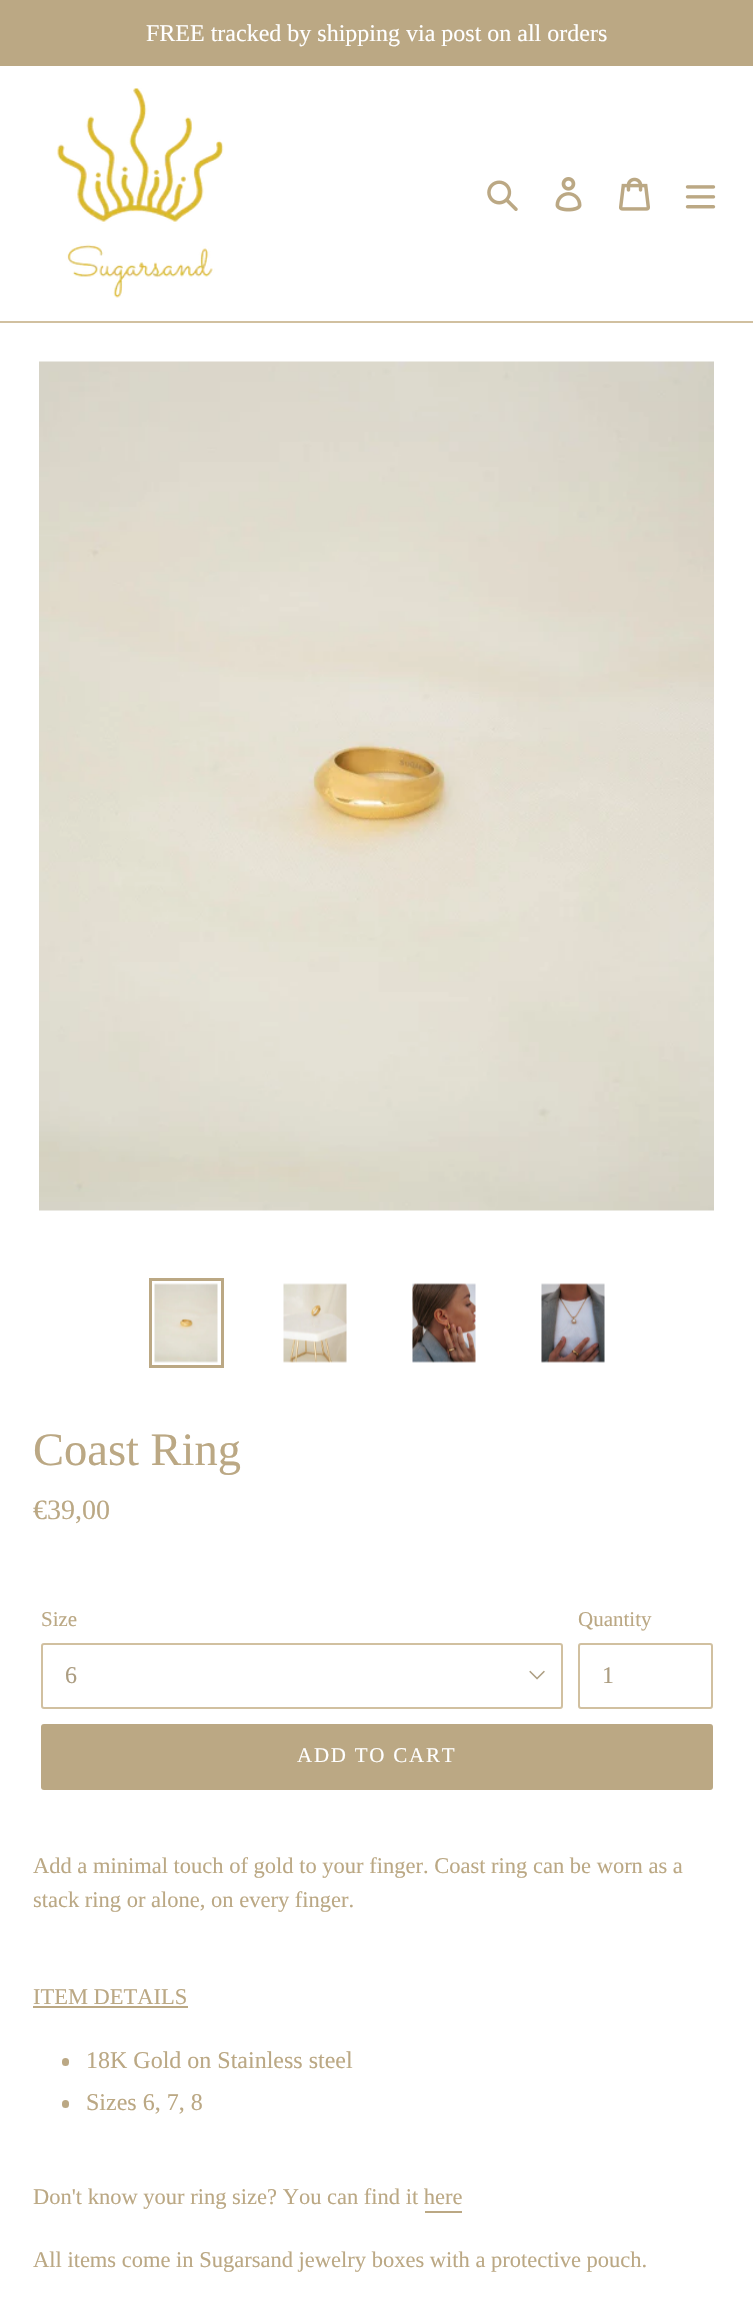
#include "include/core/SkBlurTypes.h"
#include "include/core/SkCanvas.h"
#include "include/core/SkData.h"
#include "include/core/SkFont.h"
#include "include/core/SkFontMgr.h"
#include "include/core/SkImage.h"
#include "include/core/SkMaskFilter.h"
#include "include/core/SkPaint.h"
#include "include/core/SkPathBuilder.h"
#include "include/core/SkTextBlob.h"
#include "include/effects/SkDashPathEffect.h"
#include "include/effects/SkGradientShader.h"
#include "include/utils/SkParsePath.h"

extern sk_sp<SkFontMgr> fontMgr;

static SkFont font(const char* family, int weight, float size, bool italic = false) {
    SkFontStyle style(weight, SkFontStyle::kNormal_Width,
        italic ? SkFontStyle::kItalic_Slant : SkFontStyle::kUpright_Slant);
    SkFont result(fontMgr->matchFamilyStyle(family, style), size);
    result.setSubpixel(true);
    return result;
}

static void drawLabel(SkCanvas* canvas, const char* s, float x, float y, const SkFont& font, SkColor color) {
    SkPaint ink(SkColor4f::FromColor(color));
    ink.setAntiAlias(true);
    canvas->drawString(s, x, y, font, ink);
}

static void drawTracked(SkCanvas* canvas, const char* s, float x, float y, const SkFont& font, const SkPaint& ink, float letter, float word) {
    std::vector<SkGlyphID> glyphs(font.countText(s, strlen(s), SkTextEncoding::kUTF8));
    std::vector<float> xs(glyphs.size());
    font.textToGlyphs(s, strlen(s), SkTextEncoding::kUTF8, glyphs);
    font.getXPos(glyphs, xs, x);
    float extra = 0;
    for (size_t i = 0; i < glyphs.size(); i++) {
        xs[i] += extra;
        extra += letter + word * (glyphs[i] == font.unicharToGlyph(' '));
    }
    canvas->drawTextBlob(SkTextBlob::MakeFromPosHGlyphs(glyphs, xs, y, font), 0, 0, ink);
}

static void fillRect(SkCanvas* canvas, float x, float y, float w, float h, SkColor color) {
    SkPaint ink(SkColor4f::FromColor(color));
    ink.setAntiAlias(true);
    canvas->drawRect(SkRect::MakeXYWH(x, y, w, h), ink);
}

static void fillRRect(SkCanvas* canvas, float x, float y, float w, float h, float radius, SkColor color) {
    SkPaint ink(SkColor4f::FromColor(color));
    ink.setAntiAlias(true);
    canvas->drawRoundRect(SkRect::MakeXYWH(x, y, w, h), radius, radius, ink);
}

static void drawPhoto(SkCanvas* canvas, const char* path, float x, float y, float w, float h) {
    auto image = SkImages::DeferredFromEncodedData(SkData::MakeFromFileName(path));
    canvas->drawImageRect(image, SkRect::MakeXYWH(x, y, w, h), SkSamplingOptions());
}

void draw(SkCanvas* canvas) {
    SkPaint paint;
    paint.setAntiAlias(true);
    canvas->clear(0xFFFFFFFF);
    fillRect(canvas, 0, 0, 753, 66, 0xFFBBA884);
    SkFont font1 = font("Liberation Serif", 400, 24);
    drawLabel(canvas, "FREE tracked by shipping via post on all orders", 146, 41, font1, 0xFFFFFFFF);
    fillRect(canvas, 0, 321, 753, 2, 0xFFD1C0A0);
    drawPhoto(canvas, "assets/img1.png", 57, 88, 167, 210);
    drawPhoto(canvas, "assets/img2.png", 487, 180, 31, 31);
    drawPhoto(canvas, "assets/img3.png", 555, 177, 27, 35);
    drawPhoto(canvas, "assets/img4.png", 619, 177, 31, 34);
    drawPhoto(canvas, "assets/img5.png", 685, 185, 31, 24);
    drawPhoto(canvas, "assets/img6.png", 39, 361, 675, 850);
    paint.setStroke(true);
    paint.setStrokeWidth(3);
    paint.setColor(0xFFBBA884);
    canvas->drawRect(SkRect::MakeXYWH(150.5f, 1279.5f, 72, 87), paint);
    drawPhoto(canvas, "assets/img7.png", 154, 1283, 64, 80);
    drawPhoto(canvas, "assets/img8.png", 283, 1283, 64, 80);
    drawPhoto(canvas, "assets/img9.png", 412, 1283, 64, 80);
    drawPhoto(canvas, "assets/img10.png", 541, 1283, 64, 80);
    SkFont font2 = font("Liberation Serif", 400, 46.5f);
    drawLabel(canvas, "Coast Ring", 33, 1465, font2, 0xFFBBA884);
    SkFont font3 = font("Liberation Serif", 400, 28);
    drawLabel(canvas, "€39,00", 33, 1519, font3, 0xFFBBA884);
    SkFont font4 = font("Liberation Serif", 400, 21);
    drawLabel(canvas, "Size", 41, 1626, font4, 0xFFBBA884);
    drawPhoto(canvas, "assets/img11.png", 529, 1670, 16, 10);
    paint.setStrokeWidth(2);
    paint.setColor(0xFFD1C0A0);
    canvas->drawRoundRect(SkRect::MakeXYWH(42, 1644, 520, 64), 2, 2, paint);
    drawLabel(canvas, "6", 65, 1683, font1, 0xFFAC9D81);
    drawLabel(canvas, "Quantity", 578, 1626, font4, 0xFFBBA884);
    canvas->drawRoundRect(SkRect::MakeXYWH(579, 1644, 133, 64), 2, 2, paint);
    drawLabel(canvas, "1", 602, 1683, font1, 0xFFAC9D81);
    fillRRect(canvas, 41, 1724, 672, 66, 3, 0xFFBBA884);
    paint.setStroke(false);
    paint.setColor(0xFFFFFFFF);
    drawTracked(canvas, "ADD TO CART", 297, 1762, font4, paint, 1.75f, 0);
    SkFont font5 = font("Liberation Serif", 400, 22.5f);
    drawLabel(canvas, "Add a minimal touch of gold to your finger. Coast ring can be worn as a", 33, 1873, font5, 0xFFBBA884);
    drawLabel(canvas, "stack ring or alone, on every finger.", 33, 1907, font5, 0xFFBBA884);
    drawLabel(canvas, "ITEM DETAILS", 33, 2004, font5, 0xFFBBA884);
    fillRect(canvas, 33, 2006, 155, 2, 0xFFBBA884);
    fillRRect(canvas, 62, 2058, 7, 8, 3.5f, 0xFFBBA884);
    drawLabel(canvas, "18K Gold on Stainless steel", 86, 2068, font1, 0xFFBBA884);
    fillRRect(canvas, 62, 2100, 7, 8, 3.5f, 0xFFBBA884);
    drawLabel(canvas, "Sizes 6, 7, 8", 86, 2110, font1, 0xFFBBA884);
    drawLabel(canvas, "Don't know your ring size? You can find it here", 33, 2204, font5, 0xFFBBA884);
    fillRect(canvas, 425, 2211, 37, 2, 0xFFBBA884);
    drawLabel(canvas, "All items come in Sugarsand jewelry boxes with a protective pouch.", 33, 2267, font5, 0xFFBBA884);
}
